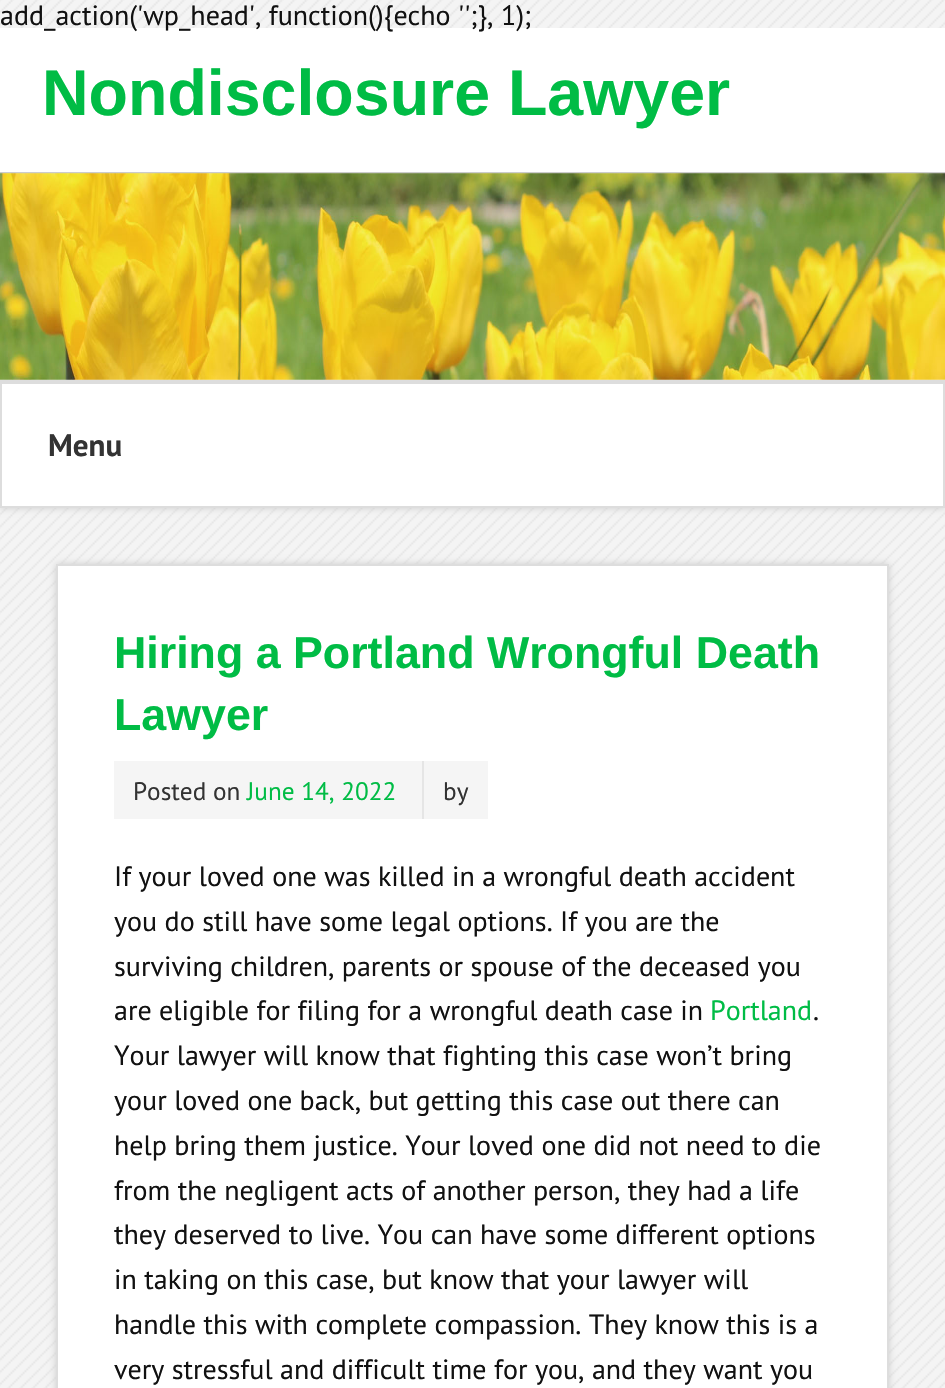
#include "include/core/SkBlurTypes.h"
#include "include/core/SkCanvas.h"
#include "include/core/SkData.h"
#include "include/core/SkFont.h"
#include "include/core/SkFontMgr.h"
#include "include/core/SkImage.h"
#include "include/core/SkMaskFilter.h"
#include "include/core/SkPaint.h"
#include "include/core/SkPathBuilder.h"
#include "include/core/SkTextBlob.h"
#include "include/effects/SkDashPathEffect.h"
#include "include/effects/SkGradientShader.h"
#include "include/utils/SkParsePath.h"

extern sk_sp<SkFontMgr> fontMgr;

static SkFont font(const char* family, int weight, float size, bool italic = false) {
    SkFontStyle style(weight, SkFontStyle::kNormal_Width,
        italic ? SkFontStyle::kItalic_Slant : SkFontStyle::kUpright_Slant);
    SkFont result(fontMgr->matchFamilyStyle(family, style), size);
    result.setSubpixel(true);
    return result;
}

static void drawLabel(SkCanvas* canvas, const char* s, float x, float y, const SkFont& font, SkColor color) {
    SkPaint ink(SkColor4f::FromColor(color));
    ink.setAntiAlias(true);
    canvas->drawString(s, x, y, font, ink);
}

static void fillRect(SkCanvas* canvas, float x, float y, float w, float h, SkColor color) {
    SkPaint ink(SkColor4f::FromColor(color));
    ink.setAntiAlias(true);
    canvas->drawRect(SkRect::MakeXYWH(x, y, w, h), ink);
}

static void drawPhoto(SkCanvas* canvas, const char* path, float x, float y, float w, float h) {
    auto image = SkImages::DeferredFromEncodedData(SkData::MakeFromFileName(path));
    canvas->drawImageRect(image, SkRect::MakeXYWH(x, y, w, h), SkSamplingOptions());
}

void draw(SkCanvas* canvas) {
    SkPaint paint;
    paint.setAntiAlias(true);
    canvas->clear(0xFFFFFFFF);
    drawPhoto(canvas, "assets/img1.png", 0, 0, 945, 1388);
    fillRect(canvas, 0, 28, 945, 352, 0xFFFFFFFF);
    SkFont font1 = font("PT Sans", 400, 28);
    drawLabel(canvas, "add_action('wp_head', function(){echo '';}, 1);", 0, 25, font1, 0xFF111111);
    SkFont font2 = font("Liberation Sans", 700, 64.5f);
    drawLabel(canvas, "Nondisclosure Lawyer", 42, 115, font2, 0xFF00BC45);
    fillRect(canvas, 0, 172, 945, 2, 0xFFCCCCCC);
    paint.setColor(0xFFCCCCCC);
    paint.setMaskFilter(SkMaskFilter::MakeBlur(kNormal_SkBlurStyle, 3.5f));
    canvas->drawRect(SkRect::MakeXYWH(0, 382, 945, 126), paint);
    paint.setMaskFilter(nullptr);
    drawPhoto(canvas, "assets/img2.png", 0, 173, 945, 207);
    fillRect(canvas, 0, 380, 945, 2, 0xFFDDDDDD);
    paint.setColor(0xFFFFFFFF);
    canvas->drawRect(SkRect::MakeXYWH(1, 383, 943, 124), paint);
    paint.setStroke(true);
    paint.setStrokeWidth(2);
    paint.setColor(0xFFDDDDDD);
    canvas->drawRect(SkRect::MakeXYWH(1, 383, 943, 124), paint);
    SkFont font3 = font("PT Sans", 700, 31);
    drawLabel(canvas, "Menu", 48, 456, font3, 0xFF333333);
    paint.setStroke(false);
    paint.setColor(0xFFCCCCCC);
    paint.setMaskFilter(SkMaskFilter::MakeBlur(kNormal_SkBlurStyle, 3.5f));
    canvas->drawRect(SkRect::MakeXYWH(56, 564, 833, 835), paint);
    paint.setMaskFilter(nullptr);
    paint.setColor(0xFFFFFFFF);
    canvas->drawRect(SkRect::MakeXYWH(57, 565, 831, 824), paint);
    paint.setStroke(true);
    paint.setColor(0xFFDDDDDD);
    canvas->drawRect(SkRect::MakeXYWH(57, 565, 831, 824), paint);
    SkFont font4 = font("Liberation Sans", 700, 44.75f);
    drawLabel(canvas, "Hiring a Portland Wrongful Death", 114, 668, font4, 0xFF00BC45);
    drawLabel(canvas, "Lawyer", 114, 730, font4, 0xFF00BC45);
    fillRect(canvas, 114, 761, 374, 58, 0xFFF5F5F5);
    SkFont font5 = font("PT Sans", 400, 25.25f);
    drawLabel(canvas, "Posted on", 133, 800, font5, 0xFF333333);
    drawLabel(canvas, "June 14, 2022", 247, 800, font5, 0xFF00BC45);
    fillRect(canvas, 422, 761, 2, 58, 0xFFE5E5E5);
    drawLabel(canvas, "by", 443, 800, font5, 0xFF333333);
    drawLabel(canvas, "If your loved one was killed in a wrongful death accident", 114, 886, font1, 0xFF111111);
    drawLabel(canvas, "you do still have some legal options. If you are the", 114, 931, font1, 0xFF111111);
    drawLabel(canvas, "surviving children, parents or spouse of the deceased you", 114, 976, font1, 0xFF111111);
    drawLabel(canvas, "are eligible for filing for a wrongful death case in", 114, 1020, font1, 0xFF111111);
    drawLabel(canvas, "Portland", 710, 1020, font1, 0xFF00BC45);
    drawLabel(canvas, ".", 813, 1020, font1, 0xFF111111);
    drawLabel(canvas, "Your lawyer will know that fighting this case won’t bring", 114, 1065, font1, 0xFF111111);
    drawLabel(canvas, "your loved one back, but getting this case out there can", 114, 1110, font1, 0xFF111111);
    drawLabel(canvas, "help bring them justice. Your loved one did not need to die", 114, 1155, font1, 0xFF111111);
    drawLabel(canvas, "from the negligent acts of another person, they had a life", 114, 1200, font1, 0xFF111111);
    drawLabel(canvas, "they deserved to live. You can have some different options", 114, 1244, font1, 0xFF111111);
    drawLabel(canvas, "in taking on this case, but know that your lawyer will", 114, 1289, font1, 0xFF111111);
    drawLabel(canvas, "handle this with complete compassion. They know this is a", 114, 1334, font1, 0xFF111111);
    drawLabel(canvas, "very stressful and difficult time for you, and they want you", 114, 1379, font1, 0xFF111111);
}
